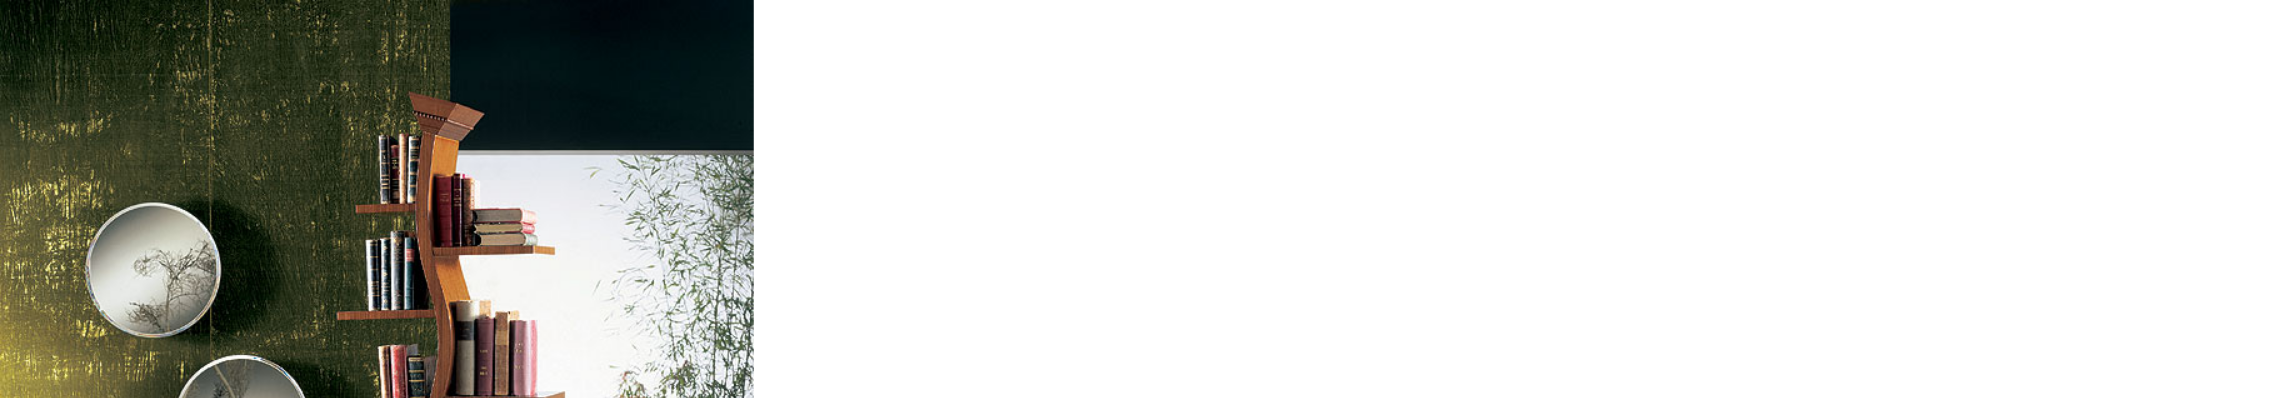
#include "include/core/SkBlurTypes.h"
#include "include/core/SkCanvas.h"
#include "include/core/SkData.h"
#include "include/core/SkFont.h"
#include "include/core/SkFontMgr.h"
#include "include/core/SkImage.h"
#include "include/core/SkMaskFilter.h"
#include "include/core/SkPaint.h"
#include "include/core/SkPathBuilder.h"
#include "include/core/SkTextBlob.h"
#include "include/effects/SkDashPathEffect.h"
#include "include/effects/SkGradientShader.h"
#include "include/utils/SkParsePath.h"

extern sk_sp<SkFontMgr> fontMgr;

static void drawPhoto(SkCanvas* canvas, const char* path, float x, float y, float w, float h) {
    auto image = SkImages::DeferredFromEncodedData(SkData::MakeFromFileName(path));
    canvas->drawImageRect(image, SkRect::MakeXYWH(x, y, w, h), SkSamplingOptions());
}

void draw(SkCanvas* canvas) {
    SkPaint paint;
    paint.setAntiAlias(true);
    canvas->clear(0xFFFFFFFF);
    drawPhoto(canvas, "assets/img1.png", 0, 0, 754, 398);
}
